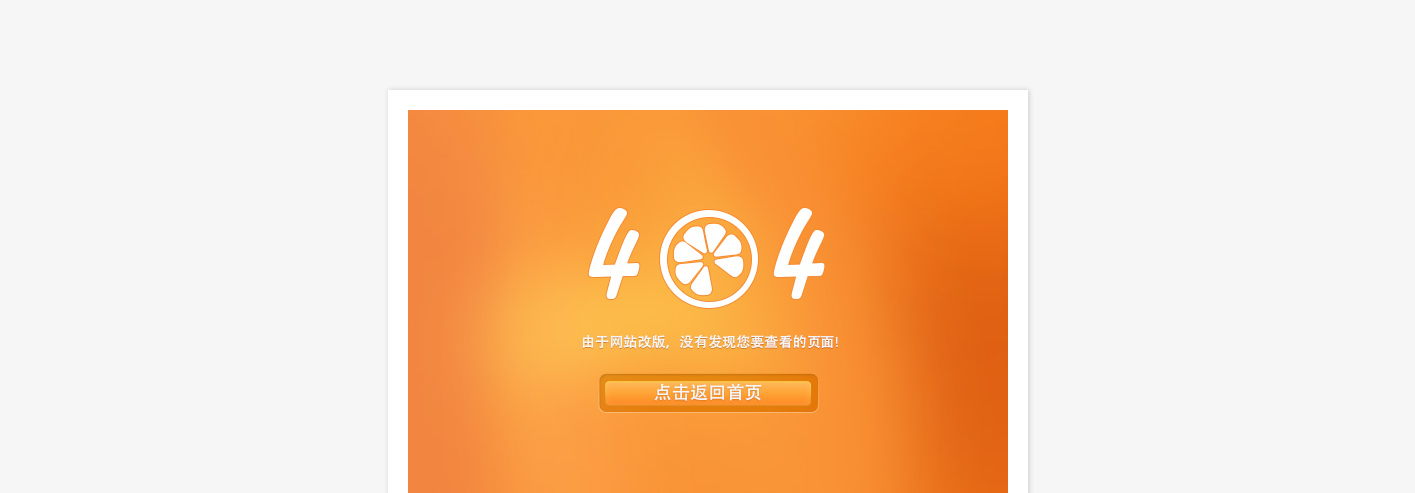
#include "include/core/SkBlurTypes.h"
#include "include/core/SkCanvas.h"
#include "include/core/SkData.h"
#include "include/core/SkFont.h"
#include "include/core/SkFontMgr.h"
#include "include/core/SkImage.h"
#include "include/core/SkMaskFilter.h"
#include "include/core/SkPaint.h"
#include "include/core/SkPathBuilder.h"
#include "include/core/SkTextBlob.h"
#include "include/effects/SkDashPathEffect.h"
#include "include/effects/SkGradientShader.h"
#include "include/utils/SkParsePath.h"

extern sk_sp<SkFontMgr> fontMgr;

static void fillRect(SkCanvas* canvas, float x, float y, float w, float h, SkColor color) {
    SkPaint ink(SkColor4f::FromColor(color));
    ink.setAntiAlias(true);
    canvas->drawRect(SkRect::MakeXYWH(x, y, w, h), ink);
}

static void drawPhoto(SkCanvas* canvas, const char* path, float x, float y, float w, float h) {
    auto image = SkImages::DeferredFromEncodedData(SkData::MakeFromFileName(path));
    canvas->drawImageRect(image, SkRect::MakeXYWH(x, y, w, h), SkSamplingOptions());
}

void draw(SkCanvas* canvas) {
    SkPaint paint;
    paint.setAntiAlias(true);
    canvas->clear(0xFFF6F6F6);
    paint.setColor(0x4D646464);
    paint.setMaskFilter(SkMaskFilter::MakeBlur(kNormal_SkBlurStyle, 2.5f));
    canvas->drawRect(SkRect::MakeXYWH(389, 90, 640, 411), paint);
    paint.setMaskFilter(nullptr);
    fillRect(canvas, 388, 90, 640, 403, 0xFFFFFFFF);
    drawPhoto(canvas, "assets/img1.png", 408, 110, 600, 383);
}
